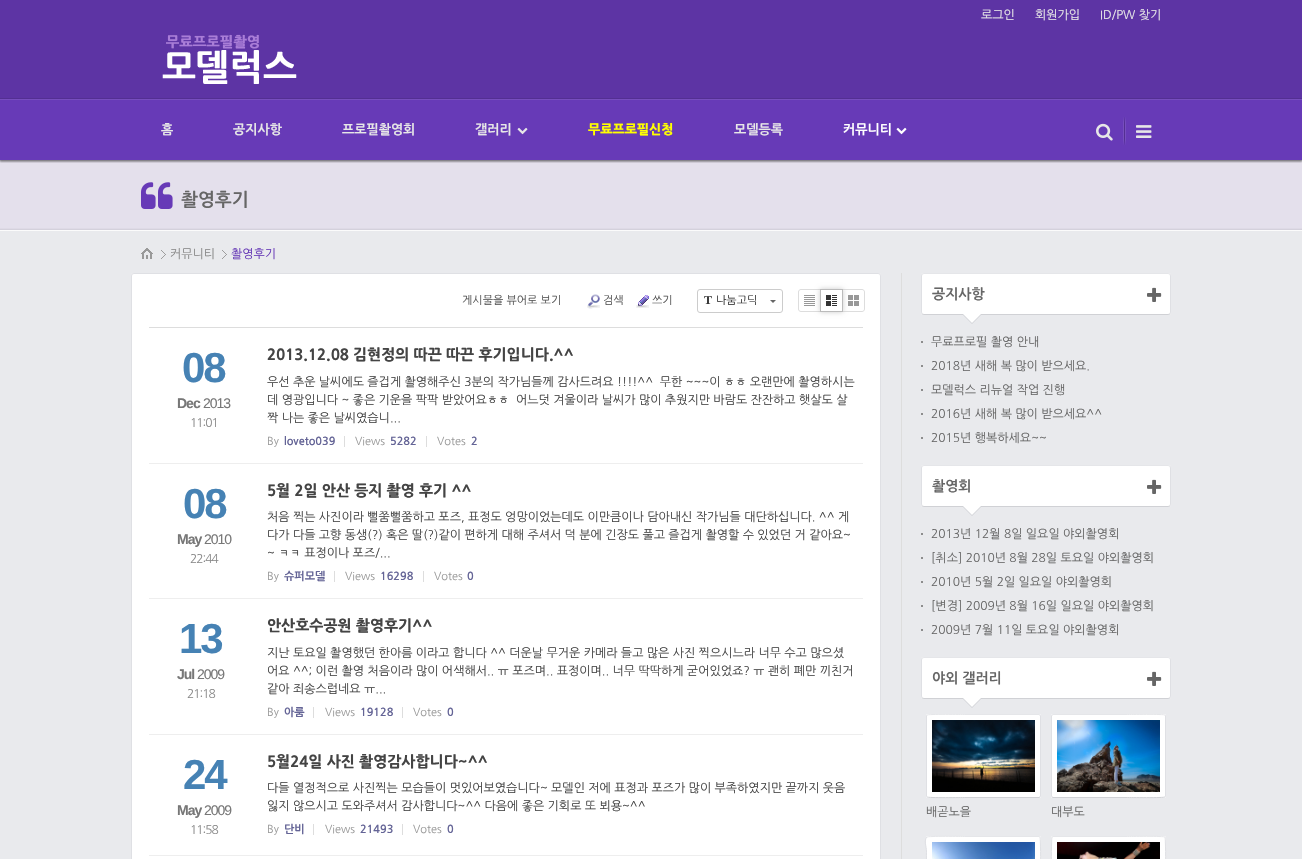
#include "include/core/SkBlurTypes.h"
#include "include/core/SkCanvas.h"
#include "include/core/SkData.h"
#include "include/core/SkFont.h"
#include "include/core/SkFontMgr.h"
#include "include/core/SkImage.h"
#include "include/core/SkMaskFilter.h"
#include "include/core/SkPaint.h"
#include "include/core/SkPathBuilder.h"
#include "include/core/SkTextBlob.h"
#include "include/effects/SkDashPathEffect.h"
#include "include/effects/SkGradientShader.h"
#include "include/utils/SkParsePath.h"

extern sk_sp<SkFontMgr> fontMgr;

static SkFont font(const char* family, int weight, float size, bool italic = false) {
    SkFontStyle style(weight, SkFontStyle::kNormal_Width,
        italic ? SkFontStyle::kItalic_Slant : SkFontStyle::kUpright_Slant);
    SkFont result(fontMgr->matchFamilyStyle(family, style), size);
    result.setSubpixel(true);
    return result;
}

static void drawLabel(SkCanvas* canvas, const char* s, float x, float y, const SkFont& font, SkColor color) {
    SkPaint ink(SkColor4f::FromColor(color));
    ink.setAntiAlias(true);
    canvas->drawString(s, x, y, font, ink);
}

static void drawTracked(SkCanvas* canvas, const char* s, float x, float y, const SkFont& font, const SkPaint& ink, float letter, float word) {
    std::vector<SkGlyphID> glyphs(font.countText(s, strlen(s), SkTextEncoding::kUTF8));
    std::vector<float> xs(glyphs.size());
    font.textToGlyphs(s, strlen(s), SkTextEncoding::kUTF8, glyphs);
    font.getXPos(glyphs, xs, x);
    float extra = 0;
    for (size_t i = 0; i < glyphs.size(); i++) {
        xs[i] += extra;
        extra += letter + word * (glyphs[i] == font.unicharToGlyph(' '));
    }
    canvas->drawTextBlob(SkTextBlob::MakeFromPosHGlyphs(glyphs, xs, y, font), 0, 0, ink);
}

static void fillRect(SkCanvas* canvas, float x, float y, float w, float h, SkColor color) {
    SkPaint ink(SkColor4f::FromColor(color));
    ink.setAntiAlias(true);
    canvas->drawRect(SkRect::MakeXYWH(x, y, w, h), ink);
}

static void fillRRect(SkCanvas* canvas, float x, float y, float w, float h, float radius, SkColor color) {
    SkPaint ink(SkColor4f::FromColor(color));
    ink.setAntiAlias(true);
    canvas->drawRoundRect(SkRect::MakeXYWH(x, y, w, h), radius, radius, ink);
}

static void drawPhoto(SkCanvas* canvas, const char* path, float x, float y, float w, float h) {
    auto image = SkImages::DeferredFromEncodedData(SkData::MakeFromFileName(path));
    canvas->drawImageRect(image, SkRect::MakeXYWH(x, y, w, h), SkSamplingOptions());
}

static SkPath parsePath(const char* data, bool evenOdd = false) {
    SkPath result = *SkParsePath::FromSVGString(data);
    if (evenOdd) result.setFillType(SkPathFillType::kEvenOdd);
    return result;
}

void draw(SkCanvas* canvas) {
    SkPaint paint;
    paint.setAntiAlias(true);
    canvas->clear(0xFFE9EAED);
    fillRect(canvas, 0, 160, 1302, 70, 0xFFE4E0EC);
    drawPhoto(canvas, "assets/img1.png", 0, 160, 1302, 2);
    fillRect(canvas, 0, 0, 1302, 160, 0xFF673AB7);
    drawPhoto(canvas, "assets/img2.png", 0, 0, 1302, 100);
    SkFont font1 = font("NanumGothic", 400, 12);
    drawLabel(canvas, "로그인", 981, 19, font1, 0xFFE7E7E7);
    drawLabel(canvas, "회원가입", 1035, 19, font1, 0xFFE7E7E7);
    drawLabel(canvas, "ID/PW 찾기", 1100, 19, font1, 0xFFE7E7E7);
    drawPhoto(canvas, "assets/img3.png", 162, 34, 135, 50);
    canvas->save();
    canvas->clipRect(SkRect::MakeXYWH(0, 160, 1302, 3));
    paint.setColor(0x4D000000);
    paint.setMaskFilter(SkMaskFilter::MakeBlur(kNormal_SkBlurStyle, 1));
    canvas->drawRect(SkRect::MakeXYWH(0, 102, 1302, 60), paint);
    paint.setMaskFilter(nullptr);
    canvas->restore();
    SkFont font2 = font("NanumGothic", 700, 13);
    drawLabel(canvas, "홈", 161, 134, font2, 0xFFE7E7E7);
    drawLabel(canvas, "공지사항", 233, 134, font2, 0xFFE7E7E7);
    drawLabel(canvas, "프로필촬영회", 342, 134, font2, 0xFFE7E7E7);
    drawLabel(canvas, "갤러리", 475, 134, font2, 0xFFE7E7E7);
    drawPhoto(canvas, "assets/img4.png", 517, 127, 11, 8);
    SkFont font3 = font("NanumGothic", 800, 13);
    drawLabel(canvas, "무료프로필신청", 588, 134, font3, 0xFFFFFF00);
    drawLabel(canvas, "모델등록", 734, 134, font2, 0xFFE7E7E7);
    drawLabel(canvas, "커뮤니티", 843, 134, font2, 0xFFFFFFFF);
    drawPhoto(canvas, "assets/img5.png", 896, 127, 11, 8);
    drawPhoto(canvas, "assets/img6.png", 1123, 117, 3, 28);
    drawPhoto(canvas, "assets/img7.png", 1096, 123, 17, 18);
    drawPhoto(canvas, "assets/img8.png", 1136, 125, 16, 13);
    drawPhoto(canvas, "assets/img9.png", 141, 182, 32, 27);
    SkFont font4 = font("NanumGothic", 700, 18);
    drawLabel(canvas, "촬영후기", 181, 206, font4, 0xFF666666);
    drawPhoto(canvas, "assets/img10.png", 0, 228, 1302, 2);
    fillRect(canvas, 0, 230, 1302, 1, 0xFFFBFBFB);
    drawPhoto(canvas, "assets/img11.png", 141, 248, 12, 11);
    drawPhoto(canvas, "assets/img12.png", 161, 250, 5, 9);
    drawLabel(canvas, "커뮤니티", 170, 258, font1, 0xFF888888);
    drawPhoto(canvas, "assets/img12.png", 222, 250, 5, 9);
    drawLabel(canvas, "촬영후기", 231, 258, font1, 0xFF673AB7);
    fillRect(canvas, 901, 273, 1, 586, 0xFFDDDDDD);
    fillRRect(canvas, 131, 273, 750, 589, 3, 0xFFFFFFFF);
    paint.setStroke(true);
    paint.setStrokeWidth(1);
    paint.setColor(0xFFDFE0E4);
    canvas->drawPath(parsePath("M132 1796L131.5 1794V276L132 274L134 273.5H878L880 274L880.5 276V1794L880 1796"), paint);
    SkFont font5 = font("NanumGothic", 400, 11);
    drawLabel(canvas, "게시물을 뷰어로 보기", 462, 304, font5, 0xFF555555);
    drawPhoto(canvas, "assets/img13.png", 587, 294, 13, 15);
    drawLabel(canvas, "검색", 603, 304, font5, 0xFF555555);
    drawPhoto(canvas, "assets/img14.png", 636, 295, 13, 13);
    drawLabel(canvas, "쓰기", 652, 304, font5, 0xFF555555);
    paint.setColor(0xFFCCCCCC);
    canvas->drawRoundRect(SkRect::MakeXYWH(697.5f, 289.5f, 85, 23), 2.5f, 2.5f, paint);
    SkFont font6 = font("Liberation Serif", 700, 12);
    drawLabel(canvas, "T", 704, 304, font6, 0xFF333333);
    drawLabel(canvas, "나눔고딕", 716, 304, font5, 0xFF333333);
    paint.setStroke(false);
    paint.setColor(0xFF666666);
    canvas->drawPath(parsePath("M770 300H776L773 303Z"), paint);
    paint.setStroke(true);
    paint.setColor(0xFFDDDDDD);
    canvas->drawPath(parsePath("M801 289.5H820.5V311.5H801C799.5 311.5 798.5 310.5 798.5 309V292C798.5 290.5 799.5 289.5 801 289.5Z"), paint);
    drawPhoto(canvas, "assets/img15.png", 804, 295, 11, 11);
    canvas->save();
    canvas->clipPath(parsePath("M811 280H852V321H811ZM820 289H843V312H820Z", true), true);
    paint.setStroke(false);
    paint.setColor(0x33000000);
    paint.setMaskFilter(SkMaskFilter::MakeBlur(kNormal_SkBlurStyle, 2.5f));
    canvas->drawRect(SkRect::MakeXYWH(820, 289, 23, 23), paint);
    paint.setMaskFilter(nullptr);
    canvas->restore();
    paint.setStroke(true);
    paint.setColor(0xFFBBBBBB);
    canvas->drawRect(SkRect::MakeXYWH(820.5f, 289.5f, 22, 22), paint);
    drawPhoto(canvas, "assets/img16.png", 826, 295, 11, 11);
    paint.setColor(0x80BBBBBB);
    canvas->drawPath(parsePath("M842.5 289.5H862C863.5 289.5 864.5 290.5 864.5 292V309C864.5 310.5 863.5 311.5 862 311.5H842.5Z"), paint);
    drawPhoto(canvas, "assets/img17.png", 848, 295, 11, 11);
    fillRect(canvas, 149, 327, 714, 1, 0xFFDDDDDD);
    fillRect(canvas, 149, 463, 714, 1, 0xFFEEEEEE);
    SkFont font7 = font("Liberation Sans", 700, 42);
    paint.setStroke(false);
    paint.setColor(0xFF4682B4);
    drawTracked(canvas, "08", 182, 382, font7, paint, -2, 0);
    SkFont font8 = font("Liberation Sans", 700, 14);
    paint.setColor(0xFF777777);
    drawTracked(canvas, "Dec", 177, 408, font8, paint, -1, 0);
    SkFont font9 = font("Liberation Sans", 400, 14);
    drawTracked(canvas, "2013", 203, 408, font9, paint, -1, 0);
    paint.setColor(0xFF888888);
    drawTracked(canvas, "11:01", 190, 427, font1, paint, -1, 0);
    SkFont font10 = font("NanumGothic", 800, 15);
    drawLabel(canvas, "2013.12.08 김현정의 따끈 따끈 후기입니다.^^", 267, 360, font10, 0xFF444444);
    drawLabel(canvas, "우선 추운 날씨에도 즐겁게 촬영해주신 3분의 작가님들께 감사드려요 !!!!^^  무한 ~~~이 ㅎㅎ 오랜만에 촬영하시는", 267, 386, font1, 0xFF444444);
    drawLabel(canvas, "데 영광입니다 ~ 좋은 기운을 팍팍 받았어요ㅎㅎ  어느덧 겨울이라 날씨가 많이 추웠지만 바람도 잔잔하고 햇살도 살", 267, 404, font1, 0xFF444444);
    drawLabel(canvas, "짝 나는 좋은 날씨였습니...", 267, 422, font1, 0xFF444444);
    fillRect(canvas, 344, 436, 1, 11, 0xFFDDDDDD);
    drawLabel(canvas, "By", 267, 445, font5, 0xFF999999);
    SkFont font11 = font("NanumGothic", 700, 11);
    drawLabel(canvas, "loveto039", 284, 445, font11, 0xFF646496);
    fillRect(canvas, 426, 436, 1, 11, 0xFFDDDDDD);
    drawLabel(canvas, "Views", 355, 445, font5, 0xFF999999);
    drawLabel(canvas, "5282", 390, 445, font11, 0xFF646496);
    drawLabel(canvas, "Votes", 437, 445, font5, 0xFF999999);
    drawLabel(canvas, "2", 471, 445, font11, 0xFF646496);
    fillRect(canvas, 149, 598, 714, 1, 0xFFEEEEEE);
    paint.setColor(0xFF4682B4);
    drawTracked(canvas, "08", 183, 518, font7, paint, -2, 0);
    paint.setColor(0xFF777777);
    drawTracked(canvas, "May", 177, 544, font8, paint, -1, 0);
    drawTracked(canvas, "2010", 204, 544, font9, paint, -1, 0);
    paint.setColor(0xFF888888);
    drawTracked(canvas, "22:44", 190, 563, font1, paint, -1, 0);
    drawLabel(canvas, "5월 2일 안산 등지 촬영 후기 ^^", 267, 496, font10, 0xFF444444);
    drawLabel(canvas, "처음 찍는 사진이라 뻘쭘뻘쭘하고 포즈, 표정도 엉망이었는데도 이만큼이나 담아내신 작가님들 대단하십니다. ^^ 게", 267, 521, font1, 0xFF444444);
    drawLabel(canvas, "다가 다들 고향 동생(?) 혹은 딸(?)같이 편하게 대해 주셔서 덕 분에 긴장도 풀고 즐겁게 촬영할 수 있었던 거 같아요~", 267, 539, font1, 0xFF444444);
    drawLabel(canvas, "~ ㅋㅋ 표정이나 포즈/...", 267, 557, font1, 0xFF444444);
    fillRect(canvas, 334, 571, 1, 11, 0xFFDDDDDD);
    drawLabel(canvas, "By", 267, 580, font5, 0xFF999999);
    drawLabel(canvas, "슈퍼모델", 284, 580, font11, 0xFF646496);
    fillRect(canvas, 423, 571, 1, 11, 0xFFDDDDDD);
    drawLabel(canvas, "Views", 345, 580, font5, 0xFF999999);
    drawLabel(canvas, "16298", 380, 580, font11, 0xFF646496);
    drawLabel(canvas, "Votes", 434, 580, font5, 0xFF999999);
    drawLabel(canvas, "0", 467, 580, font11, 0xFF646496);
    fillRect(canvas, 149, 734, 714, 1, 0xFFEEEEEE);
    paint.setColor(0xFF4682B4);
    drawTracked(canvas, "13", 179, 653, font7, paint, -2, 0);
    paint.setColor(0xFF777777);
    drawTracked(canvas, "Jul", 177, 679, font8, paint, -1, 0);
    drawTracked(canvas, "2009", 197, 679, font9, paint, -1, 0);
    paint.setColor(0xFF888888);
    drawTracked(canvas, "21:18", 187, 698, font1, paint, -1, 0);
    drawLabel(canvas, "안산호수공원 촬영후기^^", 267, 631, font10, 0xFF444444);
    drawLabel(canvas, "지난 토요일 촬영했던 한아름 이라고 합니다 ^^ 더운날 무거운 카메라 들고 많은 사진 찍으시느라 너무 수고 많으셨", 267, 657, font1, 0xFF444444);
    drawLabel(canvas, "어요 ^^; 이런 촬영 처음이라 많이 어색해서.. ㅠ 포즈며.. 표정이며.. 너무 딱딱하게 굳어있었죠? ㅠ 괜히 폐만 끼친거", 267, 675, font1, 0xFF444444);
    drawLabel(canvas, "같아 죄송스럽네요 ㅠ...", 267, 693, font1, 0xFF444444);
    fillRect(canvas, 313, 707, 1, 11, 0xFFDDDDDD);
    drawLabel(canvas, "By", 267, 716, font5, 0xFF999999);
    drawLabel(canvas, "아룸", 284, 716, font11, 0xFF646496);
    fillRect(canvas, 402, 707, 1, 11, 0xFFDDDDDD);
    drawLabel(canvas, "Views", 325, 716, font5, 0xFF999999);
    drawLabel(canvas, "19128", 360, 716, font11, 0xFF646496);
    drawLabel(canvas, "Votes", 413, 716, font5, 0xFF999999);
    drawLabel(canvas, "0", 447, 716, font11, 0xFF646496);
    fillRect(canvas, 149, 855, 714, 1, 0xFFEEEEEE);
    paint.setColor(0xFF4682B4);
    drawTracked(canvas, "24", 183, 789, font7, paint, -2, 0);
    paint.setColor(0xFF777777);
    drawTracked(canvas, "May", 177, 815, font8, paint, -1, 0);
    drawTracked(canvas, "2009", 204, 815, font9, paint, -1, 0);
    paint.setColor(0xFF888888);
    drawTracked(canvas, "11:58", 190, 834, font1, paint, -1, 0);
    drawLabel(canvas, "5월24일 사진 촬영감사합니다~^^", 267, 767, font10, 0xFF444444);
    drawLabel(canvas, "다들 열정적으로 사진찍는 모습들이 멋있어보였습니다~ 모델인 저에 표정과 포즈가 많이 부족하였지만 끝까지 웃음", 267, 792, font1, 0xFF444444);
    drawLabel(canvas, "잃지 않으시고 도와주셔서 감사합니다~^^ 다음에 좋은 기회로 또 뵈용~^^", 267, 810, font1, 0xFF444444);
    fillRect(canvas, 313, 824, 1, 11, 0xFFDDDDDD);
    drawLabel(canvas, "By", 267, 833, font5, 0xFF999999);
    drawLabel(canvas, "단비", 284, 833, font11, 0xFF646496);
    fillRect(canvas, 402, 824, 1, 11, 0xFFDDDDDD);
    drawLabel(canvas, "Views", 325, 833, font5, 0xFF999999);
    drawLabel(canvas, "21493", 360, 833, font11, 0xFF646496);
    drawLabel(canvas, "Votes", 413, 833, font5, 0xFF999999);
    drawLabel(canvas, "0", 447, 833, font11, 0xFF646496);
    fillRRect(canvas, 921, 273, 250, 42, 3, 0xFFFFFFFF);
    paint.setStroke(true);
    paint.setColor(0xFFE5E6E9);
    canvas->drawPath(parsePath("M922 274L924 273.5H1168L1170 274"), paint);
    paint.setColor(0xFFDFE0E4);
    canvas->drawPath(parsePath("M1170 274L1170.5 276V312L1170 314"), paint);
    paint.setColor(0xFFD0D1D5);
    canvas->drawPath(parsePath("M1170 314L1168 314.5H924L922 314"), paint);
    paint.setColor(0xFFDFE0E4);
    canvas->drawPath(parsePath("M922 314L921.5 312V276L922 274"), paint);
    SkFont font12 = font("NanumGothic", 700, 14);
    drawLabel(canvas, "공지사항", 932, 299, font12, 0xFF666666);
    drawPhoto(canvas, "assets/img18.png", 1147, 287, 15, 15);
    paint.setStroke(false);
    paint.setColor(0xFFD0D1D5);
    canvas->drawPath(parsePath("M962 314H982L972 324Z"), paint);
    paint.setColor(0xFFFFFFFF);
    canvas->drawPath(parsePath("M963 314H981L972 323Z"), paint);
    fillRect(canvas, 921, 341, 2, 2, 0xFF8D8D8D);
    drawLabel(canvas, "무료프로필 촬영 안내", 931, 346, font1, 0xFF666666);
    fillRect(canvas, 921, 365, 2, 2, 0xFF8D8D8D);
    drawLabel(canvas, "2018년 새해 복 많이 받으세요.", 931, 370, font1, 0xFF666666);
    fillRect(canvas, 921, 389, 2, 2, 0xFF8D8D8D);
    drawLabel(canvas, "모델럭스 리뉴얼 작업 진행", 931, 394, font1, 0xFF666666);
    fillRect(canvas, 921, 413, 2, 2, 0xFF8D8D8D);
    drawLabel(canvas, "2016년 새해 복 많이 받으세요^^", 931, 418, font1, 0xFF666666);
    fillRect(canvas, 921, 437, 2, 2, 0xFF8D8D8D);
    drawLabel(canvas, "2015년 행복하세요~~", 931, 442, font1, 0xFF666666);
    fillRRect(canvas, 921, 465, 250, 42, 3, 0xFFFFFFFF);
    paint.setStroke(true);
    paint.setColor(0xFFE5E6E9);
    canvas->drawPath(parsePath("M922 466L924 465.5H1168L1170 466"), paint);
    paint.setColor(0xFFDFE0E4);
    canvas->drawPath(parsePath("M1170 466L1170.5 468V504L1170 506"), paint);
    paint.setColor(0xFFD0D1D5);
    canvas->drawPath(parsePath("M1170 506L1168 506.5H924L922 506"), paint);
    paint.setColor(0xFFDFE0E4);
    canvas->drawPath(parsePath("M922 506L921.5 504V468L922 466"), paint);
    drawLabel(canvas, "촬영회", 932, 491, font12, 0xFF666666);
    drawPhoto(canvas, "assets/img18.png", 1147, 479, 15, 15);
    paint.setStroke(false);
    paint.setColor(0xFFD0D1D5);
    canvas->drawPath(parsePath("M962 506H982L972 516Z"), paint);
    paint.setColor(0xFFFFFFFF);
    canvas->drawPath(parsePath("M963 506H981L972 515Z"), paint);
    fillRect(canvas, 921, 533, 2, 2, 0xFF8D8D8D);
    drawLabel(canvas, "2013년 12월 8일 일요일 야외촬영회", 931, 538, font1, 0xFF666666);
    fillRect(canvas, 921, 557, 2, 2, 0xFF8D8D8D);
    drawLabel(canvas, "[취소] 2010년 8월 28일 토요일 야외촬영회", 931, 562, font1, 0xFF666666);
    fillRect(canvas, 921, 581, 2, 2, 0xFF8D8D8D);
    drawLabel(canvas, "2010년 5월 2일 일요일 야외촬영회", 931, 586, font1, 0xFF666666);
    fillRect(canvas, 921, 605, 2, 2, 0xFF8D8D8D);
    drawLabel(canvas, "[변경] 2009년 8월 16일 일요일 야외촬영회", 931, 610, font1, 0xFF666666);
    fillRect(canvas, 921, 629, 2, 2, 0xFF8D8D8D);
    drawLabel(canvas, "2009년 7월 11일 토요일 야외촬영회", 931, 634, font1, 0xFF666666);
    fillRRect(canvas, 921, 657, 250, 42, 3, 0xFFFFFFFF);
    paint.setStroke(true);
    paint.setColor(0xFFE5E6E9);
    canvas->drawPath(parsePath("M922 658L924 657.5H1168L1170 658"), paint);
    paint.setColor(0xFFDFE0E4);
    canvas->drawPath(parsePath("M1170 658L1170.5 660V696L1170 698"), paint);
    paint.setColor(0xFFD0D1D5);
    canvas->drawPath(parsePath("M1170 698L1168 698.5H924L922 698"), paint);
    paint.setColor(0xFFDFE0E4);
    canvas->drawPath(parsePath("M922 698L921.5 696V660L922 658"), paint);
    drawLabel(canvas, "야외 갤러리", 932, 683, font12, 0xFF666666);
    drawPhoto(canvas, "assets/img18.png", 1147, 671, 15, 15);
    paint.setStroke(false);
    paint.setColor(0xFFD0D1D5);
    canvas->drawPath(parsePath("M962 698H982L972 708Z"), paint);
    paint.setColor(0xFFFFFFFF);
    canvas->drawPath(parsePath("M963 698H981L972 707Z"), paint);
    fillRRect(canvas, 926, 714, 115, 84, 2, 0xFFFFFFFF);
    canvas->save();
    canvas->clipRect(SkRect::MakeXYWH(921, 714, 250, 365));
    paint.setStroke(true);
    paint.setColor(0xFFE5E6E9);
    canvas->drawPath(parsePath("M927 715C928 714 962.5 714.5 965 714.5H1039L1040 715"), paint);
    canvas->restore();
    paint.setColor(0xFFDFE0E4);
    canvas->drawPath(parsePath("M1040 715L1040.5 716V796L1040 797"), paint);
    paint.setColor(0xFFD0D1D5);
    canvas->drawPath(parsePath("M1040 797L1039 797.5H965C962.5 797.5 928 798 927 797"), paint);
    paint.setColor(0xFFDFE0E4);
    canvas->drawPath(parsePath("M927 797L926.5 796V716L927 715"), paint);
    drawPhoto(canvas, "assets/img19.png", 932, 720, 103, 72);
    drawLabel(canvas, "배곧노을", 926, 816, font1, 0xFF666666);
    fillRRect(canvas, 1051, 714, 115, 84, 2, 0xFFFFFFFF);
    canvas->save();
    canvas->clipRect(SkRect::MakeXYWH(921, 714, 250, 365));
    paint.setColor(0xFFE5E6E9);
    canvas->drawPath(parsePath("M1052 715L1053 714.5H1127C1129.5 714.5 1164 714 1165 715"), paint);
    canvas->restore();
    paint.setColor(0xFFDFE0E4);
    canvas->drawPath(parsePath("M1165 715L1165.5 716V796L1165 797"), paint);
    paint.setColor(0xFFD0D1D5);
    canvas->drawPath(parsePath("M1165 797C1164 798 1129.5 797.5 1127 797.5H1053L1052 797"), paint);
    paint.setColor(0xFFDFE0E4);
    canvas->drawPath(parsePath("M1052 797L1051.5 796V716L1052 715"), paint);
    drawPhoto(canvas, "assets/img20.png", 1057, 720, 103, 72);
    drawLabel(canvas, "대부도", 1051, 816, font1, 0xFF666666);
    fillRRect(canvas, 926, 836, 115, 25, 2, 0xFFFFFFFF);
    paint.setColor(0xFFE5E6E9);
    canvas->drawPath(parsePath("M927 837C928 836 962.5 836.5 965 836.5H1039L1040 837"), paint);
    paint.setColor(0xFFDFE0E4);
    canvas->drawPath(parsePath("M1040 837C1041 838 1040.5 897 1040.5 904C1040.5 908.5 1043.5 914.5 1040 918"), paint);
    canvas->drawPath(parsePath("M927 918C926 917 926.5 858 926.5 851C926.5 846.5 923.5 840.5 927 837"), paint);
    drawPhoto(canvas, "assets/img21.png", 932, 842, 103, 17);
    fillRRect(canvas, 1051, 836, 115, 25, 2, 0xFFFFFFFF);
    paint.setColor(0xFFE5E6E9);
    canvas->drawPath(parsePath("M1052 837L1053 836.5H1127C1129.5 836.5 1164 836 1165 837"), paint);
    paint.setColor(0xFFDFE0E4);
    canvas->drawPath(parsePath("M1165 837C1166 838 1165.5 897 1165.5 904C1165.5 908.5 1168.5 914.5 1165 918"), paint);
    canvas->drawPath(parsePath("M1052 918C1048.5 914.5 1051.5 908.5 1051.5 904C1051.5 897 1051 838 1052 837"), paint);
    drawPhoto(canvas, "assets/img22.png", 1057, 842, 103, 17);
}
